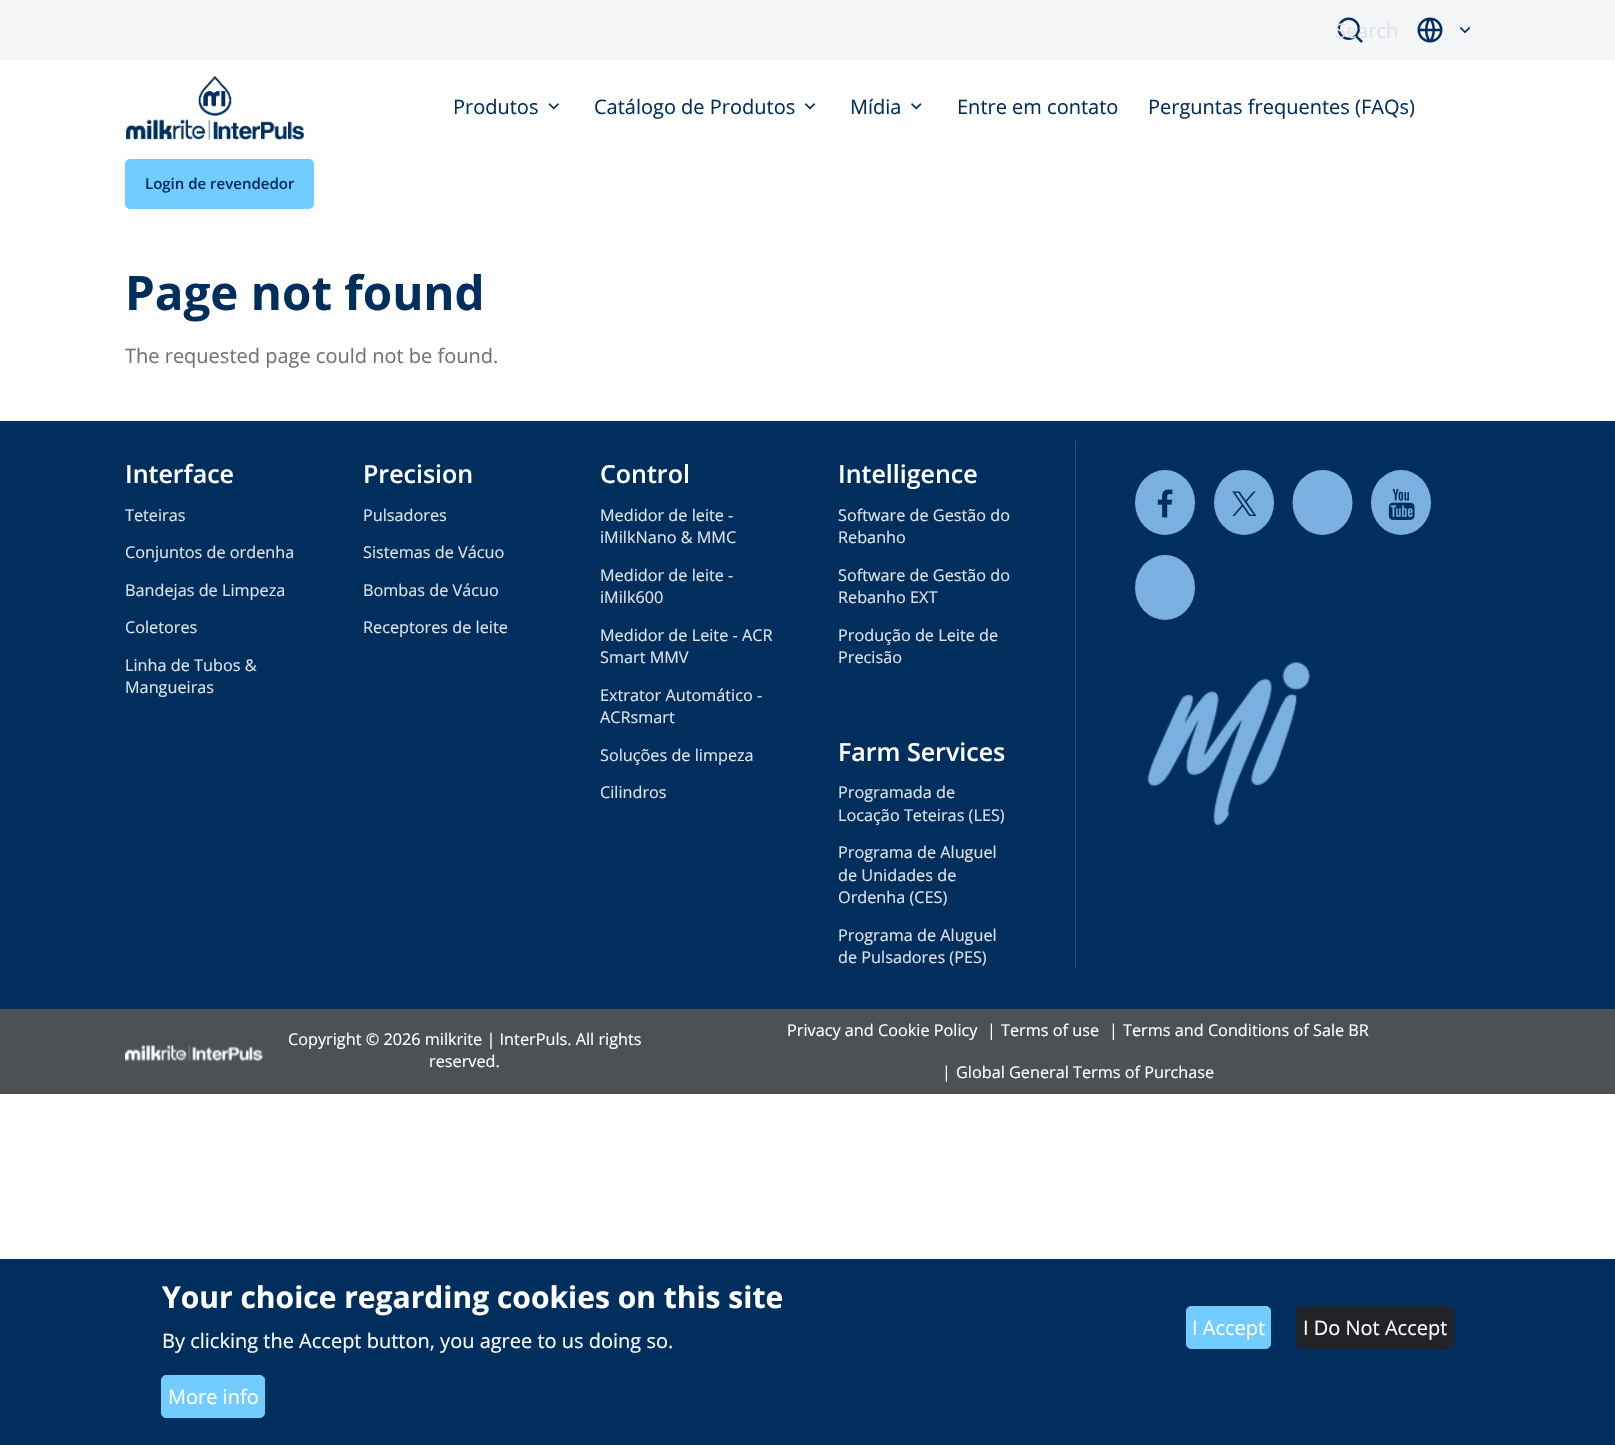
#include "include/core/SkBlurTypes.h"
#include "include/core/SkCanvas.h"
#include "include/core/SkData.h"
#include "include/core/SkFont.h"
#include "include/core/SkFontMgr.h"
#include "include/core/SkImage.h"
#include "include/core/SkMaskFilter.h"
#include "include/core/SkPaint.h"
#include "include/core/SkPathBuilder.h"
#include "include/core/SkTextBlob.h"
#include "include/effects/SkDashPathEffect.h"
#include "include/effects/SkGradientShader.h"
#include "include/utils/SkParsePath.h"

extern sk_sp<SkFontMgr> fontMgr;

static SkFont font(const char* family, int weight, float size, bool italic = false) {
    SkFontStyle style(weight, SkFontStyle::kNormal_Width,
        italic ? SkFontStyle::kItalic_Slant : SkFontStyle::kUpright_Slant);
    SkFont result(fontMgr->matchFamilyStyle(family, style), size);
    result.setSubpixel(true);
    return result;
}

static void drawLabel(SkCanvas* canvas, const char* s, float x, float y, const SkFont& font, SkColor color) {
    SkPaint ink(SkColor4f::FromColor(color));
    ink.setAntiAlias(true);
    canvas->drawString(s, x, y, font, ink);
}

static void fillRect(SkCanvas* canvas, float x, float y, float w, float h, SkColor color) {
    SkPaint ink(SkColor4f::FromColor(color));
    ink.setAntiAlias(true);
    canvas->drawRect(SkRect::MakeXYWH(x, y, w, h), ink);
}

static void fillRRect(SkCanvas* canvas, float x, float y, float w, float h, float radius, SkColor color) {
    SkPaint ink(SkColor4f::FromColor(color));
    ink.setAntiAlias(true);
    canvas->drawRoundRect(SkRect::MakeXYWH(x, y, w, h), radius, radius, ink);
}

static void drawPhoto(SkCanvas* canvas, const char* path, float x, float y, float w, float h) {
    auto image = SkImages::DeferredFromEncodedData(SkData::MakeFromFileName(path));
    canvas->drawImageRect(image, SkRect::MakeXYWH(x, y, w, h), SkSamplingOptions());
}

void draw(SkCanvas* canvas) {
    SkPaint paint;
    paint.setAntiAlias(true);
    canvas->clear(0xFFFFFFFF);
    fillRect(canvas, 0, 0, 1615, 60, 0xFFF4F5F6);
    drawPhoto(canvas, "assets/img1.png", 1337, 17, 26, 26);
    SkFont font1 = font("Open Sans", 400, 20);
    drawLabel(canvas, "Search", 1335, 38, font1, 0xFFDEE2E6);
    drawPhoto(canvas, "assets/img2.png", 1417, 17, 26, 26);
    drawPhoto(canvas, "assets/img3.png", 1459, 27, 12, 7);
    drawPhoto(canvas, "assets/img4.png", 126, 76, 179, 64);
    drawLabel(canvas, "Produtos", 453, 114, font1, 0xFF002E5D);
    drawPhoto(canvas, "assets/img5.png", 548, 103, 11, 7);
    drawLabel(canvas, "Catálogo de Produtos", 594, 114, font1, 0xFF002E5D);
    drawPhoto(canvas, "assets/img6.png", 804, 103, 12, 7);
    drawLabel(canvas, "Mídia", 850, 114, font1, 0xFF002E5D);
    drawPhoto(canvas, "assets/img7.png", 911, 103, 11, 7);
    drawLabel(canvas, "Entre em contato", 957, 114, font1, 0xFF002E5D);
    drawLabel(canvas, "Perguntas frequentes (FAQs)", 1148, 114, font1, 0xFF002E5D);
    fillRRect(canvas, 125, 159, 189, 50, 5, 0xFF73CCFF);
    SkFont font2 = font("Open Sans", 600, 15);
    drawLabel(canvas, "Login de revendedor", 145, 189, font2, 0xFF002E5D);
    SkFont font3 = font("Open Sans", 700, 47.5f);
    drawLabel(canvas, "Page not found", 125, 310, font3, 0xFF002E5D);
    drawLabel(canvas, "The requested page could not be found.", 125, 363, font1, 0xFF727272);
    fillRect(canvas, 0, 421, 1615, 588, 0xFF002E5D);
    SkFont font4 = font("Open Sans", 600, 25);
    drawLabel(canvas, "Interface", 125, 483, font4, 0xFFFFFFFF);
    SkFont font5 = font("Open Sans", 400, 16.25f);
    drawLabel(canvas, "Teteiras", 125, 521, font5, 0xFFDEE2E6);
    drawLabel(canvas, "Conjuntos de ordenha", 125, 558, font5, 0xFFDEE2E6);
    drawLabel(canvas, "Bandejas de Limpeza", 125, 596, font5, 0xFFDEE2E6);
    drawLabel(canvas, "Coletores", 125, 633, font5, 0xFFDEE2E6);
    drawLabel(canvas, "Linha de Tubos &", 125, 671, font5, 0xFFDEE2E6);
    drawLabel(canvas, "Mangueiras", 125, 693, font5, 0xFFDEE2E6);
    drawLabel(canvas, "Precision", 363, 483, font4, 0xFFFFFFFF);
    drawLabel(canvas, "Pulsadores", 363, 521, font5, 0xFFDEE2E6);
    drawLabel(canvas, "Sistemas de Vácuo", 363, 558, font5, 0xFFDEE2E6);
    drawLabel(canvas, "Bombas de Vácuo", 363, 596, font5, 0xFFDEE2E6);
    drawLabel(canvas, "Receptores de leite", 363, 633, font5, 0xFFDEE2E6);
    drawLabel(canvas, "Control", 600, 483, font4, 0xFFFFFFFF);
    drawLabel(canvas, "Medidor de leite -", 600, 521, font5, 0xFFDEE2E6);
    drawLabel(canvas, "iMilkNano & MMC", 600, 543, font5, 0xFFDEE2E6);
    drawLabel(canvas, "Medidor de leite -", 600, 581, font5, 0xFFDEE2E6);
    drawLabel(canvas, "iMilk600", 600, 603, font5, 0xFFDEE2E6);
    drawLabel(canvas, "Medidor de Leite - ACR", 600, 641, font5, 0xFFDEE2E6);
    drawLabel(canvas, "Smart MMV", 600, 663, font5, 0xFFDEE2E6);
    drawLabel(canvas, "Extrator Automático -", 600, 701, font5, 0xFFDEE2E6);
    drawLabel(canvas, "ACRsmart", 600, 723, font5, 0xFFDEE2E6);
    drawLabel(canvas, "Soluções de limpeza", 600, 761, font5, 0xFFDEE2E6);
    drawLabel(canvas, "Cilindros", 600, 798, font5, 0xFFDEE2E6);
    drawLabel(canvas, "Intelligence", 838, 483, font4, 0xFFFFFFFF);
    drawLabel(canvas, "Software de Gestão do", 838, 521, font5, 0xFFDEE2E6);
    drawLabel(canvas, "Rebanho", 838, 543, font5, 0xFFDEE2E6);
    drawLabel(canvas, "Software de Gestão do", 838, 581, font5, 0xFFDEE2E6);
    drawLabel(canvas, "Rebanho EXT", 838, 603, font5, 0xFFDEE2E6);
    drawLabel(canvas, "Produção de Leite de", 838, 641, font5, 0xFFDEE2E6);
    drawLabel(canvas, "Precisão", 838, 663, font5, 0xFFDEE2E6);
    fillRect(canvas, 1075, 441, 1, 528, 0xFF294F77);
    paint.setColor(0xFF7AB0E0);
    canvas->drawOval(SkRect::MakeXYWH(1135, 470, 60, 65), paint);
    drawPhoto(canvas, "assets/img8.png", 1157, 489, 16, 29);
    canvas->drawOval(SkRect::MakeXYWH(1214, 470, 60, 65), paint);
    drawPhoto(canvas, "assets/img9.png", 1232, 491, 25, 25);
    canvas->drawOval(SkRect::MakeXYWH(1292.5f, 470, 60, 65), paint);
    canvas->drawOval(SkRect::MakeXYWH(1371, 470, 60, 65), paint);
    drawPhoto(canvas, "assets/img10.png", 1388, 489, 27, 31);
    canvas->drawOval(SkRect::MakeXYWH(1135, 555, 60, 65), paint);
    drawPhoto(canvas, "assets/img11.png", 1147, 662, 164, 164);
    drawLabel(canvas, "Farm Services", 838, 761, font4, 0xFFFFFFFF);
    drawLabel(canvas, "Programada de", 838, 798, font5, 0xFFDEE2E6);
    drawLabel(canvas, "Locação Teteiras (LES)", 838, 821, font5, 0xFFDEE2E6);
    drawLabel(canvas, "Programa de Aluguel", 838, 858, font5, 0xFFDEE2E6);
    drawLabel(canvas, "de Unidades de", 838, 881, font5, 0xFFDEE2E6);
    drawLabel(canvas, "Ordenha (CES)", 838, 903, font5, 0xFFDEE2E6);
    drawLabel(canvas, "Programa de Aluguel", 838, 941, font5, 0xFFDEE2E6);
    drawLabel(canvas, "de Pulsadores (PES)", 838, 963, font5, 0xFFDEE2E6);
    fillRect(canvas, 0, 1009, 1615, 85, 0xFF4D5156);
    drawPhoto(canvas, "assets/img12.png", 125, 1045, 138, 17);
    drawLabel(canvas, "Copyright © 2026 milkrite | InterPuls. All rights", 288, 1045, font5, 0xFFFFFFFF);
    drawLabel(canvas, "reserved.", 429, 1067, font5, 0xFFFFFFFF);
    drawLabel(canvas, "Privacy and Cookie Policy", 787, 1036, font5, 0xFFFFFFFF);
    drawLabel(canvas, "|", 987, 1036, font5, 0xFFFFFFFF);
    drawLabel(canvas, "Terms of use", 1001, 1036, font5, 0xFFFFFFFF);
    drawLabel(canvas, "|", 1109, 1036, font5, 0xFFFFFFFF);
    drawLabel(canvas, "Terms and Conditions of Sale BR", 1123, 1036, font5, 0xFFFFFFFF);
    drawLabel(canvas, "|", 942, 1078, font5, 0xFFFFFFFF);
    drawLabel(canvas, "Global General Terms of Purchase", 956, 1078, font5, 0xFFFFFFFF);
    fillRect(canvas, 0, 1259, 1615, 186, 0xFF002E5D);
    SkFont font6 = font("Open Sans", 700, 30);
    drawLabel(canvas, "Your choice regarding cookies on this site", 162, 1308, font6, 0xFFFFFFFF);
    drawLabel(canvas, "By clicking the Accept button, you agree to us doing so.", 162, 1348, font1, 0xFFFFFFFF);
    paint.setColor(0xFF73CCFF);
    canvas->drawRoundRect(SkRect::MakeXYWH(161.5f, 1375.5f, 103, 42), 4.5f, 4.5f, paint);
    paint.setStroke(true);
    paint.setStrokeWidth(1);
    canvas->drawRoundRect(SkRect::MakeXYWH(161.5f, 1375.5f, 103, 42), 4.5f, 4.5f, paint);
    drawLabel(canvas, "More info", 168, 1404, font1, 0xFFFFFFFF);
    paint.setStroke(false);
    canvas->drawRoundRect(SkRect::MakeXYWH(1186.5f, 1306.5f, 84, 42), 4.5f, 4.5f, paint);
    paint.setStroke(true);
    canvas->drawRoundRect(SkRect::MakeXYWH(1186.5f, 1306.5f, 84, 42), 4.5f, 4.5f, paint);
    drawLabel(canvas, "I Accept", 1192, 1335, font1, 0xFFFFFFFF);
    paint.setStroke(false);
    paint.setColor(0xFF212326);
    canvas->drawRoundRect(SkRect::MakeXYWH(1296.5f, 1306.5f, 157, 42), 4.5f, 4.5f, paint);
    paint.setStroke(true);
    canvas->drawRoundRect(SkRect::MakeXYWH(1296.5f, 1306.5f, 157, 42), 4.5f, 4.5f, paint);
    drawLabel(canvas, "I Do Not Accept", 1303, 1335, font1, 0xFFFFFFFF);
}
